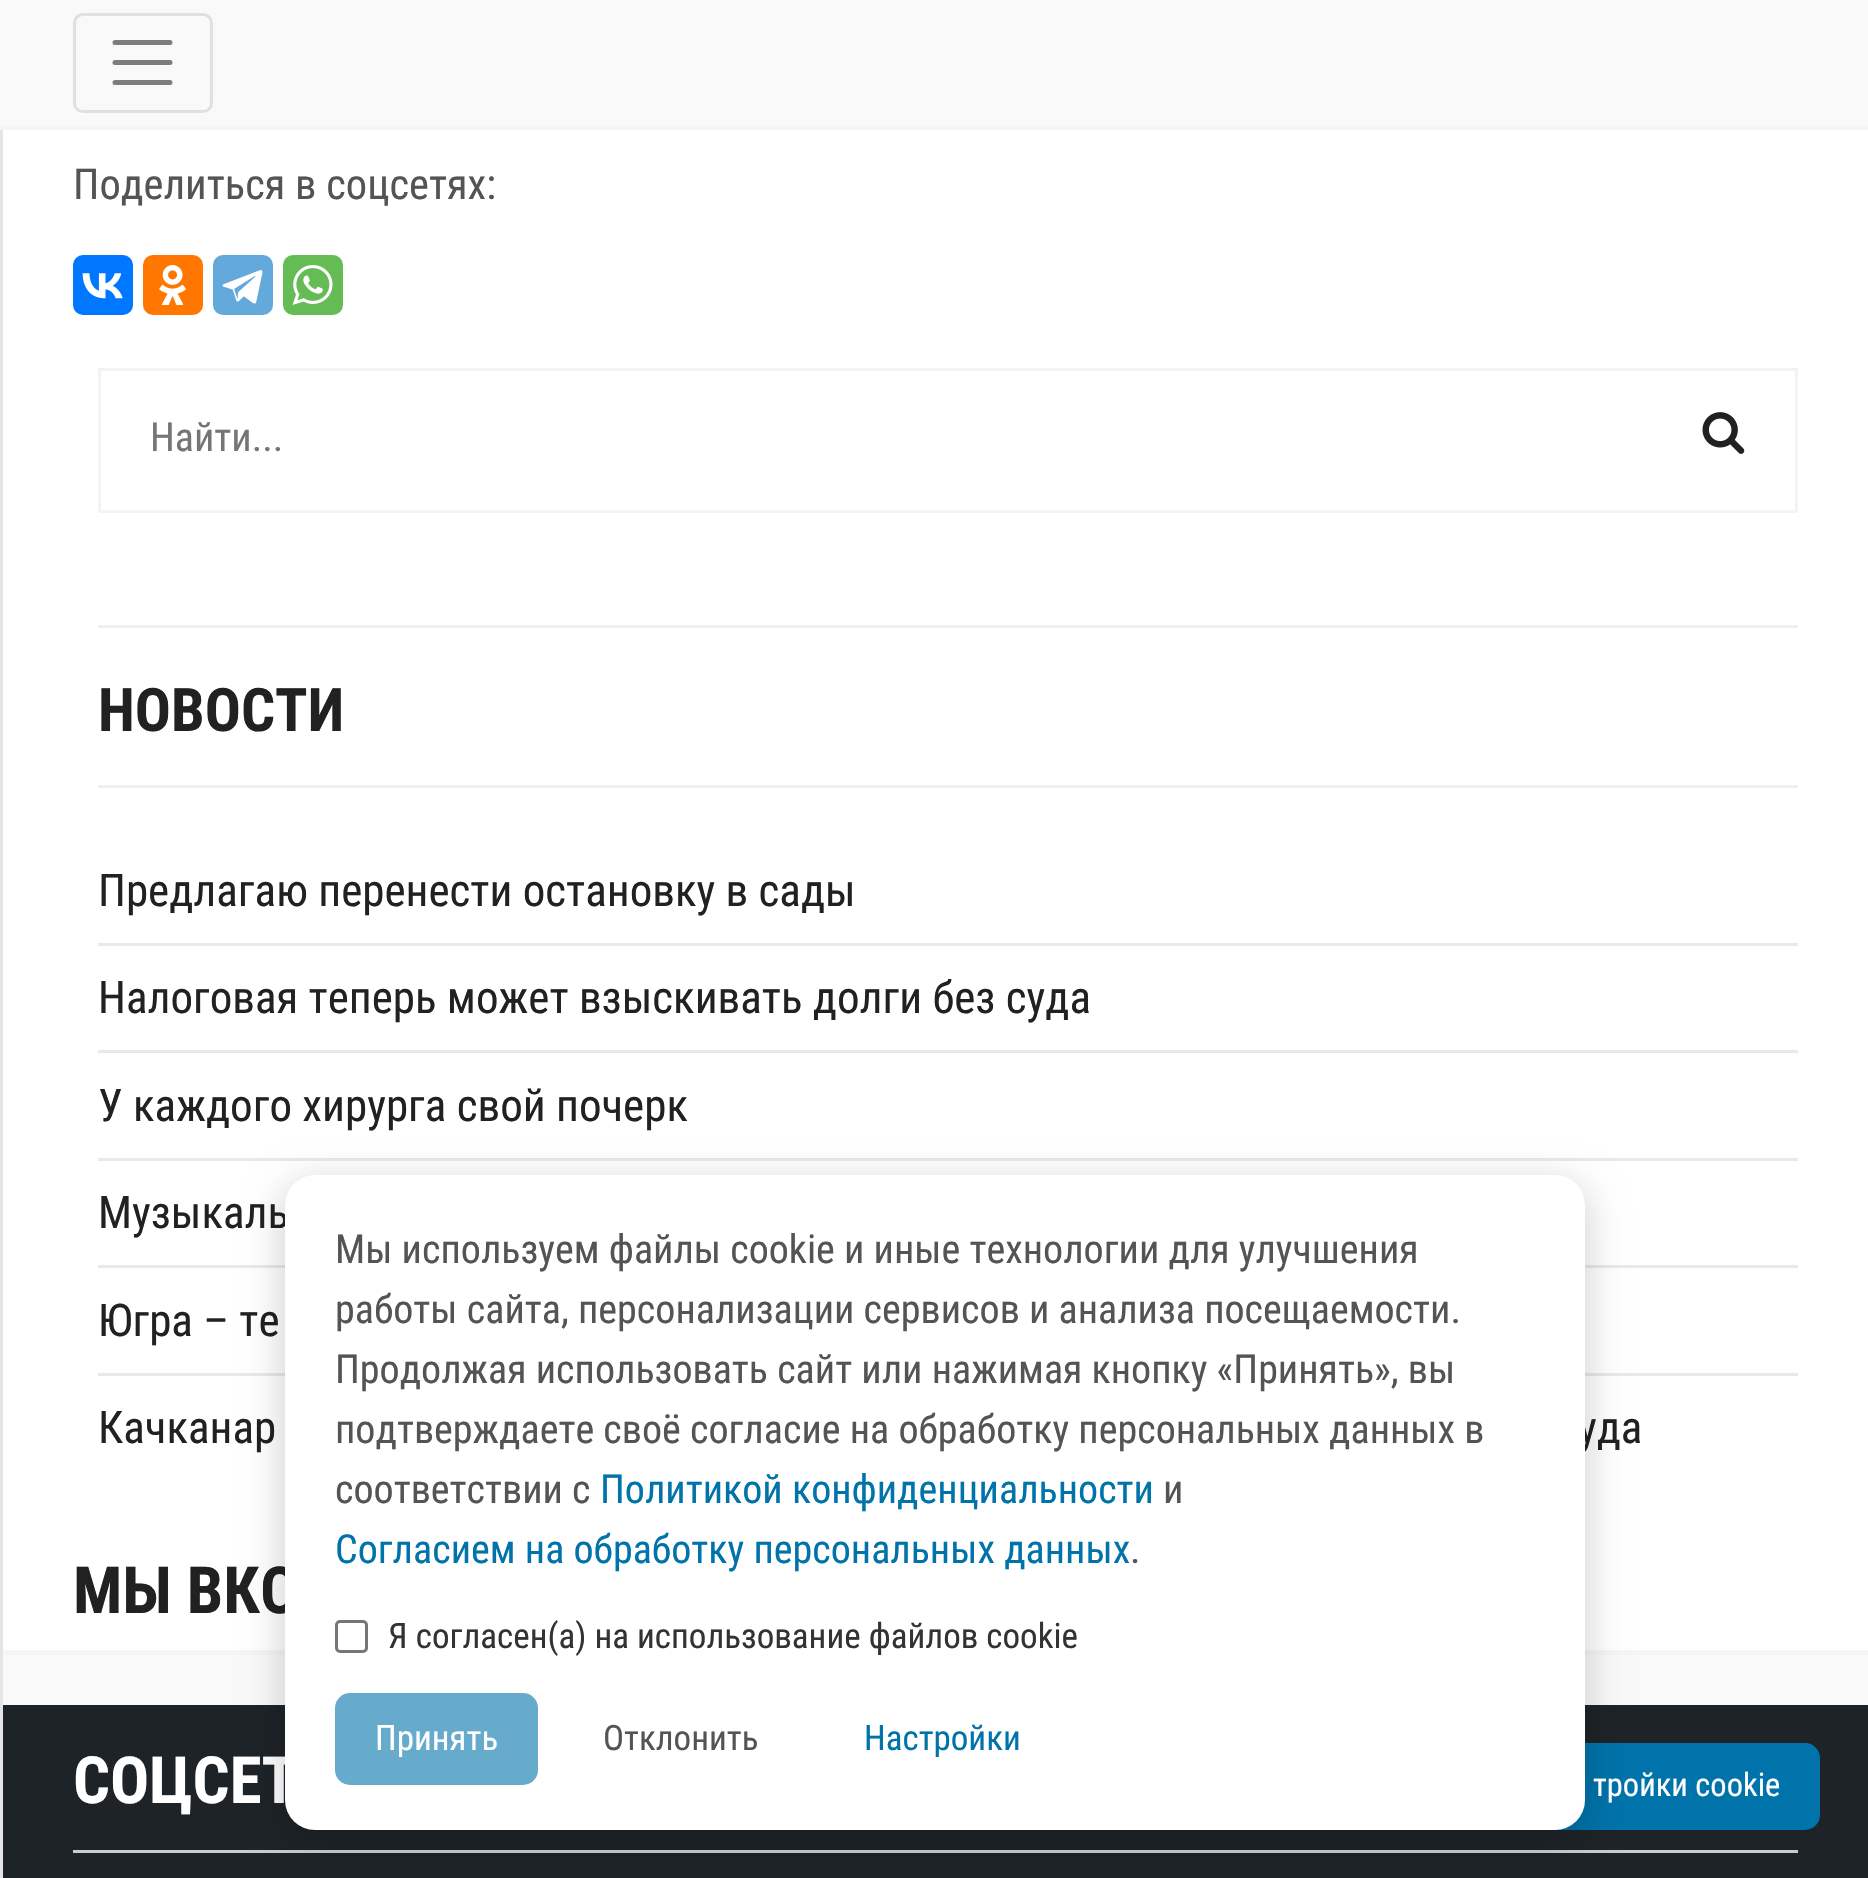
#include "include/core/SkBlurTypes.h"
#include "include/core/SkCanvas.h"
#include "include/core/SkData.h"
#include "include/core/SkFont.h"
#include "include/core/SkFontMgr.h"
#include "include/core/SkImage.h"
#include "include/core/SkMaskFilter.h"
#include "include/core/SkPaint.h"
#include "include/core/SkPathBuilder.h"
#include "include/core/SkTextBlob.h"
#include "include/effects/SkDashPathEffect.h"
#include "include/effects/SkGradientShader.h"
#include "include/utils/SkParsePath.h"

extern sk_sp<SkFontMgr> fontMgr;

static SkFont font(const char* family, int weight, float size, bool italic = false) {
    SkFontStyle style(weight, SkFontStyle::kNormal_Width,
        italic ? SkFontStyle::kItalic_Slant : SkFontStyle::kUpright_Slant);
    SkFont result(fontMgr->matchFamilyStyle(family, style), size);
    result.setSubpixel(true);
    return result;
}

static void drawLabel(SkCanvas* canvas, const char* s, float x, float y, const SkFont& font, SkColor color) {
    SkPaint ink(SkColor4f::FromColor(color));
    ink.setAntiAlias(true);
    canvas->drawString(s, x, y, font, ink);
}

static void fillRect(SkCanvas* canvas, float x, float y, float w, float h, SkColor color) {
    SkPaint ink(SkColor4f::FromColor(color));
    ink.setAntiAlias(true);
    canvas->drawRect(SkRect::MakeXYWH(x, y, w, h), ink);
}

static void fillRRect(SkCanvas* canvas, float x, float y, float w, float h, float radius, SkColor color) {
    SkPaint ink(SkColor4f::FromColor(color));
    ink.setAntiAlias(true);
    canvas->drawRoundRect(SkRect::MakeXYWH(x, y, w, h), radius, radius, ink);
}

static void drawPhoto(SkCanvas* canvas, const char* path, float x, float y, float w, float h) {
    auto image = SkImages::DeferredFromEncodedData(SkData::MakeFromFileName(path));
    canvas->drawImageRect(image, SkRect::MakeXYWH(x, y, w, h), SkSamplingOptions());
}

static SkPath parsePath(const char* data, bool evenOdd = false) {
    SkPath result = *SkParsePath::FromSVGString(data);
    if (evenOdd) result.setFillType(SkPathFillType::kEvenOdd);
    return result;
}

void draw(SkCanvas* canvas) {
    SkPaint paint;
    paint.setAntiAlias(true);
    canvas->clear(0xFFFFFFFF);
    fillRect(canvas, 0, 130, 3, 1748, 0xFFE5E5E5);
    fillRect(canvas, 0, 0, 1868, 125, 0xFFF9F9F9);
    fillRect(canvas, 0, 125, 1868, 5, 0xFFF5F5F5);
    paint.setStroke(true);
    paint.setStrokeWidth(3);
    paint.setColor(0xFFE0E0E0);
    canvas->drawRoundRect(SkRect::MakeXYWH(74.5f, 14.5f, 137, 97), 8.5f, 8.5f, paint);
    paint.setStrokeWidth(5);
    paint.setStrokeCap(SkPaint::kRound_Cap);
    paint.setColor(0xFF7D7D7D);
    canvas->drawPath(parsePath("M115 42.5H170M115 62.5H170M115 82.5H170"), paint);
    SkFont font1 = font("Roboto Condensed", 400, 42.5f);
    drawLabel(canvas, "Поделиться в соцсетях:", 73, 199, font1, 0xFF545454);
    fillRRect(canvas, 73, 255, 60, 60, 10, 0xFF0077FF);
    drawPhoto(canvas, "assets/img1.png", 82, 273, 41, 26);
    fillRRect(canvas, 143, 255, 60, 60, 10, 0xFFFF7700);
    drawPhoto(canvas, "assets/img2.png", 159, 265, 27, 40);
    fillRRect(canvas, 213, 255, 60, 60, 10, 0xFF64A9DC);
    drawPhoto(canvas, "assets/img3.png", 222, 270, 41, 34);
    fillRRect(canvas, 283, 255, 60, 60, 10, 0xFF65BC54);
    drawPhoto(canvas, "assets/img4.png", 292, 265, 41, 40);
    paint.setStrokeWidth(3);
    paint.setStrokeCap(SkPaint::kButt_Cap);
    paint.setColor(0xFFF3F3F3);
    canvas->drawRect(SkRect::MakeXYWH(99.5f, 369.5f, 1697, 142), paint);
    SkFont font2 = font("Roboto Condensed", 400, 40);
    drawLabel(canvas, "Найти...", 150, 451, font2, 0xFF757575);
    drawPhoto(canvas, "assets/img5.png", 1702, 412, 43, 42);
    fillRect(canvas, 98, 625, 1700, 3, 0xFFEFEFEF);
    fillRect(canvas, 98, 785, 1700, 3, 0xFFEFEFEF);
    SkFont font3 = font("Roboto Condensed", 700, 60);
    drawLabel(canvas, "НОВОСТИ", 98, 731, font3, 0xFF212121);
    fillRect(canvas, 98, 943, 1700, 3, 0xFFE9E9E9);
    SkFont font4 = font("Roboto Condensed", 400, 45);
    drawLabel(canvas, "Предлагаю перенести остановку в сады", 98, 906, font4, 0xFF212121);
    fillRect(canvas, 98, 1050, 1700, 3, 0xFFE9E9E9);
    drawLabel(canvas, "Налоговая теперь может взыскивать долги без суда", 98, 1013, font4, 0xFF212121);
    fillRect(canvas, 98, 1158, 1700, 3, 0xFFE9E9E9);
    drawLabel(canvas, "У каждого хирурга свой почерк", 98, 1121, font4, 0xFF212121);
    fillRect(canvas, 98, 1265, 1700, 3, 0xFFE9E9E9);
    drawLabel(canvas, "Музыкаль", 98, 1228, font4, 0xFF212121);
    fillRect(canvas, 98, 1373, 1700, 3, 0xFFE9E9E9);
    drawLabel(canvas, "Югра – те", 98, 1336, font4, 0xFF212121);
    drawLabel(canvas, "Качканар", 98, 1443, font4, 0xFF212121);
    drawLabel(canvas, "уда", 1578, 1443, font4, 0xFF212121);
    SkFont font5 = font("Roboto Condensed", 700, 65);
    drawLabel(canvas, "МЫ ВКО", 73, 1613, font5, 0xFF212121);
    fillRect(canvas, 3, 1655, 1865, 50, 0xFFF9F9F9);
    fillRect(canvas, 3, 1650, 1865, 5, 0xFFF5F5F5);
    fillRect(canvas, 3, 1705, 1865, 173, 0xFF1D2327);
    drawLabel(canvas, "СОЦСЕТ", 73, 1803, font5, 0xFFFFFFFF);
    fillRect(canvas, 73, 1850, 1725, 3, 0xFFCCCCCC);
    fillRRect(canvas, 1503, 1743, 317, 87, 15, 0xFF0073AA);
    paint.setStroke(false);
    paint.setColor(0x33000000);
    paint.setMaskFilter(SkMaskFilter::MakeBlur(kNormal_SkBlurStyle, 20));
    canvas->drawRoundRect(SkRect::MakeXYWH(285, 1185, 1300, 655), 30, 30, paint);
    paint.setMaskFilter(nullptr);
    fillRRect(canvas, 285, 1175, 1300, 655, 30, 0xFFFFFFFF);
    drawLabel(canvas, "Мы используем файлы cookie и иные технологии для улучшения", 335, 1263, font2, 0xFF545454);
    drawLabel(canvas, "работы сайта, персонализации сервисов и анализа посещаемости.", 335, 1323, font2, 0xFF545454);
    drawLabel(canvas, "Продолжая использовать сайт или нажимая кнопку «Принять», вы", 335, 1383, font2, 0xFF545454);
    drawLabel(canvas, "подтверждаете своё согласие на обработку персональных данных в", 335, 1443, font2, 0xFF545454);
    drawLabel(canvas, "соответствии с", 335, 1503, font2, 0xFF545454);
    drawLabel(canvas, "Политикой конфиденциальности", 600, 1503, font2, 0xFF0073AA);
    drawLabel(canvas, "и", 1163, 1503, font2, 0xFF545454);
    drawLabel(canvas, "Согласием на обработку персональных данных", 335, 1563, font2, 0xFF0073AA);
    drawLabel(canvas, ".", 1130, 1563, font2, 0xFF545454);
    paint.setStroke(true);
    paint.setColor(0xFF767676);
    canvas->drawRoundRect(SkRect::MakeXYWH(336.5f, 1621.5f, 30, 30), 3.5f, 3.5f, paint);
    SkFont font6 = font("Roboto Condensed", 400, 35);
    drawLabel(canvas, "Я согласен(а) на использование файлов cookie", 388, 1648, font6, 0xFF333333);
    fillRRect(canvas, 335, 1693, 203, 92, 15, 0xFF66ABCC);
    drawLabel(canvas, "Принять", 375, 1750, font6, 0xFFFFFFFF);
    drawLabel(canvas, "Отклонить", 603, 1750, font6, 0xFF545454);
    drawLabel(canvas, "Настройки", 864, 1750, font6, 0xFF0073AA);
    SkFont font7 = font("Roboto Condensed", 400, 32.5f);
    drawLabel(canvas, "тройки cookie", 1593, 1796, font7, 0xFFFFFFFF);
}
